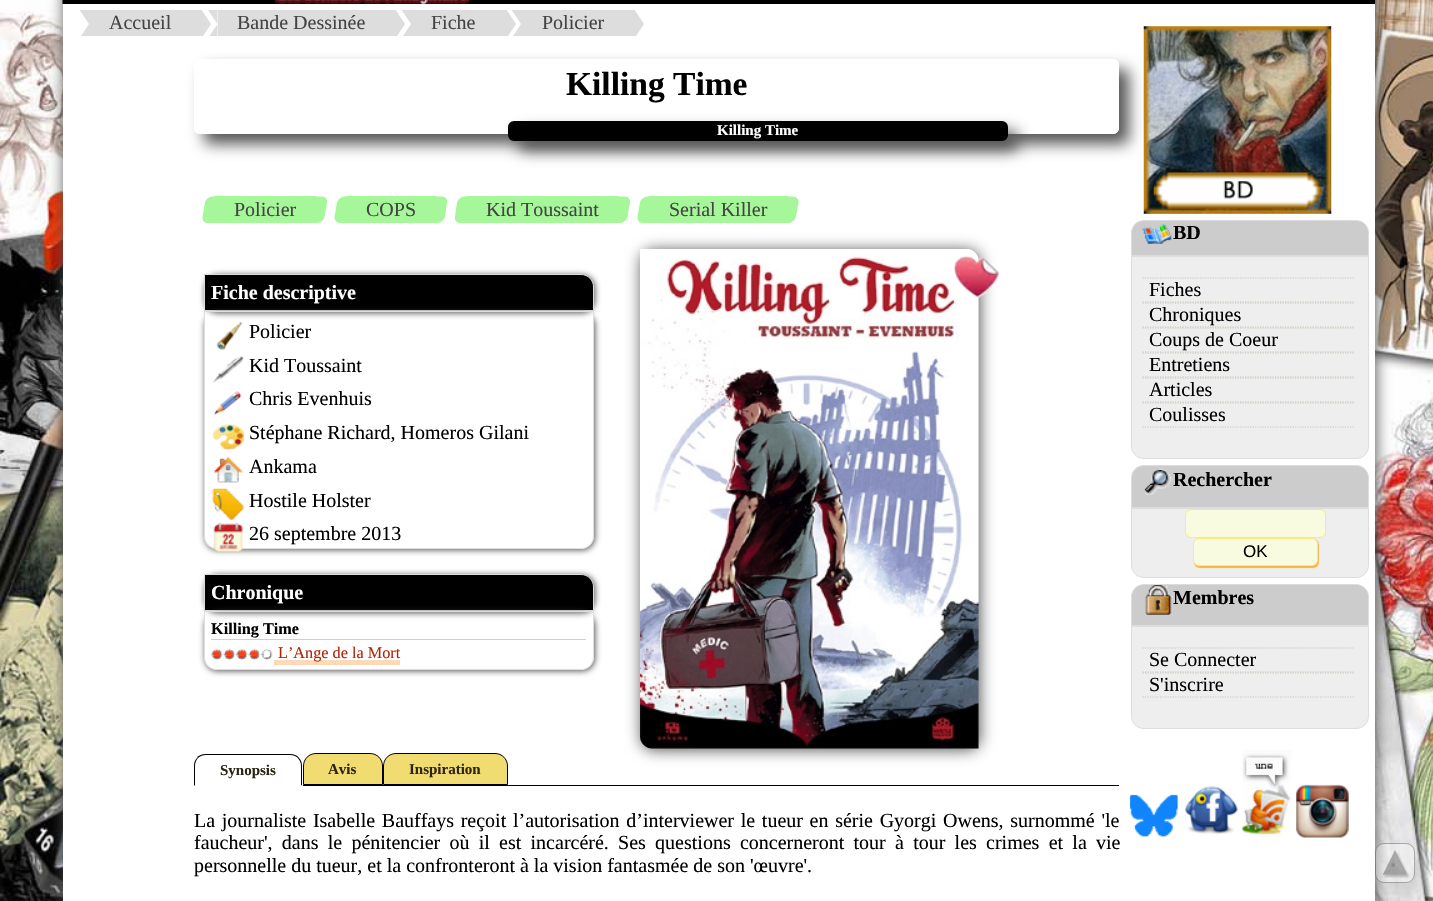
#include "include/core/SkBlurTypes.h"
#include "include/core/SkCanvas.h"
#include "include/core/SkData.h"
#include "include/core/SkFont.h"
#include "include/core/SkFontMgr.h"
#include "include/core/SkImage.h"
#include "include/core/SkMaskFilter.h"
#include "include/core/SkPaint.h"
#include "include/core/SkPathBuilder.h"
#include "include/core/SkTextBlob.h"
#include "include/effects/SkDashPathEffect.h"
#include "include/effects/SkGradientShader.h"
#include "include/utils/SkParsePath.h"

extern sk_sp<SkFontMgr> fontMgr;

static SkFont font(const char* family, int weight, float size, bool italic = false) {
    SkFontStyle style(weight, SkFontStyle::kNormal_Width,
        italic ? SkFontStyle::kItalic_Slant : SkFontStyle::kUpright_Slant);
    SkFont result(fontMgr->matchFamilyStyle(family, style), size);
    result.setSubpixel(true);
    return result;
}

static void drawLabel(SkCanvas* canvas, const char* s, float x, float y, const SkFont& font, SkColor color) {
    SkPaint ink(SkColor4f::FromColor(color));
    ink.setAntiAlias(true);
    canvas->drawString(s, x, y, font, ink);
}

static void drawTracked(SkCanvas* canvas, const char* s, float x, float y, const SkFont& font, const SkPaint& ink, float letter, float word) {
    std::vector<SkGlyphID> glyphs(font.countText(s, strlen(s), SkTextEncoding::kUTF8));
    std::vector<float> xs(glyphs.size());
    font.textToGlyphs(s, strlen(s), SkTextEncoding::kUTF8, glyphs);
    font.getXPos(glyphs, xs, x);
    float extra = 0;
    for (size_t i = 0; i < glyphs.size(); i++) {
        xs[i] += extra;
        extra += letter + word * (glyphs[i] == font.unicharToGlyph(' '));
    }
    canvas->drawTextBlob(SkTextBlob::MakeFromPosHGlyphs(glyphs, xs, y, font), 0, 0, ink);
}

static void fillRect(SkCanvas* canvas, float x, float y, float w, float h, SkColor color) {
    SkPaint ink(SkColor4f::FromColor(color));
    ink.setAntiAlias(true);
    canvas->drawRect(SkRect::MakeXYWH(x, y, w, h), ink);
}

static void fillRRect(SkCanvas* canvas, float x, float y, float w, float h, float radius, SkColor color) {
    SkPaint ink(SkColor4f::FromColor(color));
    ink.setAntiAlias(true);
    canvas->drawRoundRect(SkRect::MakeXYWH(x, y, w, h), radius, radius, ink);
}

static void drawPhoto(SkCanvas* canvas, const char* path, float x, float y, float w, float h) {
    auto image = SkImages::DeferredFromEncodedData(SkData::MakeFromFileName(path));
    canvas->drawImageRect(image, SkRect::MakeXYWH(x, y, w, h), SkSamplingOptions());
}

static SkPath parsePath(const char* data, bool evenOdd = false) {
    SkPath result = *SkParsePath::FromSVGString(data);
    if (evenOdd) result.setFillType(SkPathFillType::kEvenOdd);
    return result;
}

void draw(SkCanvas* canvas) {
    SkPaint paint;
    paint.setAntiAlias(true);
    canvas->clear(0xFFFFFFFF);
    drawPhoto(canvas, "assets/img1.png", 0, 0, 1433, 901);
    paint.setColor(0xFF555555);
    paint.setMaskFilter(SkMaskFilter::MakeBlur(kNormal_SkBlurStyle, 7.5f));
    canvas->drawRoundRect(SkRect::MakeXYWH(64, -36, 1312, 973), 13, 13, paint);
    paint.setMaskFilter(nullptr);
    fillRect(canvas, 63, 4, 1312, 897, 0xFFFFFFFF);
    fillRect(canvas, 63, 0, 1312, 4, 0xFF000000);
    drawPhoto(canvas, "assets/img2.png", 62, 0, 411, 4);
    fillRect(canvas, 89, 10, 102, 26, 0xFFDDDDDD);
    canvas->save();
    canvas->clipRect(SkRect::MakeXYWH(69, 10, 1050, 26));
    paint.setColor(0xFFDDDDDD);
    canvas->drawPath(parsePath("M69-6H89V24ZM89 54H69L89 24Z"), paint);
    canvas->restore();
    SkFont font1 = font("Liberation Serif", 400, 20);
    drawLabel(canvas, "Accueil", 109, 29, font1, 0xFF444444);
    canvas->save();
    canvas->clipRect(SkRect::MakeXYWH(69, 10, 1050, 26));
    canvas->drawPath(parsePath("M191 54V-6L211 24Z"), paint);
    canvas->restore();
    fillRect(canvas, 218, 10, 167, 26, 0xFFDDDDDD);
    canvas->save();
    canvas->clipRect(SkRect::MakeXYWH(69, 10, 1050, 26));
    canvas->drawPath(parsePath("M197.5-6H217.5V24ZM217.5 54H197.5L217.5 24Z"), paint);
    canvas->restore();
    drawLabel(canvas, "Bande Dessinée", 237, 29, font1, 0xFF444444);
    canvas->save();
    canvas->clipRect(SkRect::MakeXYWH(69, 10, 1050, 26));
    canvas->drawPath(parsePath("M385 54V-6L405 24Z"), paint);
    canvas->restore();
    fillRect(canvas, 411, 10, 85, 26, 0xFFDDDDDD);
    canvas->save();
    canvas->clipRect(SkRect::MakeXYWH(69, 10, 1050, 26));
    canvas->drawPath(parsePath("M391-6H411V24ZM411 54H391L411 24Z"), paint);
    canvas->restore();
    drawLabel(canvas, "Fiche", 431, 29, font1, 0xFF444444);
    canvas->save();
    canvas->clipRect(SkRect::MakeXYWH(69, 10, 1050, 26));
    canvas->drawPath(parsePath("M496 54V-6L516 24Z"), paint);
    canvas->restore();
    fillRect(canvas, 521, 10, 103, 26, 0xFFDDDDDD);
    canvas->save();
    canvas->clipRect(SkRect::MakeXYWH(69, 10, 1050, 26));
    canvas->drawPath(parsePath("M501-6H521V24ZM521 54H501L521 24Z"), paint);
    canvas->restore();
    drawLabel(canvas, "Policier", 542, 29, font1, 0xFF444444);
    canvas->save();
    canvas->clipRect(SkRect::MakeXYWH(69, 10, 1050, 26));
    canvas->drawPath(parsePath("M624 54V-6L644 24Z"), paint);
    canvas->restore();
    canvas->save();
    canvas->clipPath(parsePath("M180 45H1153V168H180ZM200 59H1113C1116.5 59 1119 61.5 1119 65V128C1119 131.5 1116.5 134 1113 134H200C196.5 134 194 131.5 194 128V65C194 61.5 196.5 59 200 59Z", true), true);
    paint.setColor(0xFF555555);
    paint.setMaskFilter(SkMaskFilter::MakeBlur(kNormal_SkBlurStyle, 7.5f));
    canvas->drawRoundRect(SkRect::MakeXYWH(204, 69, 925, 75), 6, 6, paint);
    paint.setMaskFilter(nullptr);
    canvas->restore();
    paint.setStroke(true);
    paint.setStrokeWidth(6);
    paint.setColor(0xFFFFFFFF);
    canvas->drawRoundRect(SkRect::MakeXYWH(197, 62, 919, 69), 3, 3, paint);
    SkFont font2 = font("Liberation Serif", 700, 33.5f);
    drawLabel(canvas, "Killing Time", 566, 95, font2, 0xFF000000);
    paint.setStroke(false);
    paint.setColor(0xFF555555);
    paint.setMaskFilter(SkMaskFilter::MakeBlur(kNormal_SkBlurStyle, 7.5f));
    canvas->drawRoundRect(SkRect::MakeXYWH(518, 131, 500, 20), 6, 6, paint);
    paint.setMaskFilter(nullptr);
    fillRRect(canvas, 508, 121, 500, 20, 6, 0xFF000000);
    SkFont font3 = font("Liberation Serif", 700, 15);
    drawLabel(canvas, "Killing Time", 717, 135, font3, 0xFFFFFFFF);
    fillRect(canvas, 214, 196, 102, 27, 0xFFA6F799);
    paint.setColor(0xFFA6F799);
    canvas->drawPath(parsePath("M212.5 196.5H226L221.5 223H207.5C204 223 202 220 202.5 216.5L205 202.5C205.5 199.5 209 196.5 212.5 196.5Z"), paint);
    drawLabel(canvas, "Policier", 234, 216, font1, 0xFF444444);
    canvas->drawPath(parsePath("M308.5 196.5H322C325.5 196.5 328 199.5 327 202.5L324.5 216.5C324 220 321 223 317.5 223H303.5Z"), paint);
    fillRect(canvas, 346, 196, 90, 27, 0xFFA6F799);
    canvas->drawPath(parsePath("M344.5 196.5H358.5L353.5 223H340C336.5 223 334 220 334.5 216.5L337 202.5C338 199.5 341 196.5 344.5 196.5Z"), paint);
    drawLabel(canvas, "COPS", 366, 216, font1, 0xFF444444);
    canvas->drawPath(parsePath("M428.5 196.5H442C445.5 196.5 448 199.5 447 202.5L445 216.5C444 220 441 223 437.5 223H423.5Z"), paint);
    fillRect(canvas, 466, 196, 153, 27, 0xFFA6F799);
    canvas->drawPath(parsePath("M464.5 196.5H478.5L473.5 223H460C456.5 223 454 220 455 216.5L457 202.5C458 199.5 461 196.5 464.5 196.5Z"), paint);
    drawLabel(canvas, "Kid Toussaint", 486, 216, font1, 0xFF444444);
    canvas->drawPath(parsePath("M611 196.5H625C628.5 196.5 630.5 199.5 630 202.5L627.5 216.5C627 220 623.5 223 620 223H606.5Z"), paint);
    fillRect(canvas, 649, 196, 139, 27, 0xFFA6F799);
    canvas->drawPath(parsePath("M647.5 196.5H661L656.5 223H642.5C639 223 637 220 637.5 216.5L640 202.5C640.5 199.5 644 196.5 647.5 196.5Z"), paint);
    drawLabel(canvas, "Serial Killer", 669, 216, font1, 0xFF444444);
    canvas->drawPath(parsePath("M779.5 196.5H793C796.5 196.5 799 199.5 798.5 202.5L796 216.5C795 220 792 223 788.5 223H774.5Z"), paint);
    paint.setColor(0xFF555555);
    paint.setMaskFilter(SkMaskFilter::MakeBlur(kNormal_SkBlurStyle, 3));
    canvas->drawRoundRect(SkRect::MakeXYWH(205, 275, 390, 38), 13, 13, paint);
    paint.setMaskFilter(nullptr);
    paint.setColor(0xFF000000);
    canvas->drawPath(parsePath("M204.5 274.5H581C588 274.5 593.5 280 593.5 287V310.5H204.5Z"), paint);
    paint.setStroke(true);
    paint.setStrokeWidth(1);
    paint.setColor(0xFFDDDDDD);
    canvas->drawPath(parsePath("M204.5 274.5H581C588 274.5 593.5 280 593.5 287V310.5H204.5Z"), paint);
    canvas->save();
    canvas->clipPath(parsePath("M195 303H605V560H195ZM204 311H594V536C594 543 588 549 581 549H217C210 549 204 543 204 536Z", true), true);
    paint.setStroke(false);
    paint.setColor(0xFF555555);
    paint.setMaskFilter(SkMaskFilter::MakeBlur(kNormal_SkBlurStyle, 3));
    canvas->drawRoundRect(SkRect::MakeXYWH(205, 313, 390, 237), 13, 13, paint);
    paint.setMaskFilter(nullptr);
    canvas->restore();
    SkFont font4 = font("Liberation Serif", 700, 20);
    drawLabel(canvas, "Fiche descriptive", 211, 299, font4, 0xFFFFFFFF);
    paint.setStroke(true);
    paint.setColor(0xFFDDDDDD);
    canvas->drawPath(parsePath("M204.5 311.5H593.5V536C593.5 543 588 548.5 581 548.5H217C210 548.5 204.5 543 204.5 536Z"), paint);
    drawPhoto(canvas, "assets/img3.png", 216, 321, 27, 30);
    drawLabel(canvas, "Policier", 249, 338, font1, 0xFF000000);
    drawPhoto(canvas, "assets/img4.png", 212, 356, 32, 27);
    drawLabel(canvas, "Kid Toussaint", 249, 372, font1, 0xFF000000);
    drawPhoto(canvas, "assets/img5.png", 213, 391, 29, 24);
    drawLabel(canvas, "Chris Evenhuis", 249, 405, font1, 0xFF000000);
    drawPhoto(canvas, "assets/img6.png", 212, 423, 32, 27);
    drawLabel(canvas, "Stéphane Richard, Homeros Gilani", 249, 439, font1, 0xFF000000);
    drawPhoto(canvas, "assets/img7.png", 213, 456, 31, 27);
    drawLabel(canvas, "Ankama", 249, 473, font1, 0xFF000000);
    drawPhoto(canvas, "assets/img8.png", 212, 488, 32, 32);
    drawLabel(canvas, "Hostile Holster", 249, 507, font1, 0xFF000000);
    drawPhoto(canvas, "assets/img9.png", 213, 522, 30, 31);
    drawLabel(canvas, "26 septembre 2013", 249, 540, font1, 0xFF000000);
    paint.setStroke(false);
    paint.setColor(0xFF555555);
    paint.setMaskFilter(SkMaskFilter::MakeBlur(kNormal_SkBlurStyle, 3));
    canvas->drawRoundRect(SkRect::MakeXYWH(205, 575, 390, 38), 13, 13, paint);
    paint.setMaskFilter(nullptr);
    paint.setColor(0xFF000000);
    canvas->drawPath(parsePath("M204.5 574.5H581C588 574.5 593.5 580 593.5 587V610.5H204.5Z"), paint);
    paint.setStroke(true);
    paint.setColor(0xFFDDDDDD);
    canvas->drawPath(parsePath("M204.5 574.5H581C588 574.5 593.5 580 593.5 587V610.5H204.5Z"), paint);
    canvas->save();
    canvas->clipPath(parsePath("M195 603H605V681H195ZM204 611H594V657C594 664 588 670 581 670H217C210 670 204 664 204 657Z", true), true);
    paint.setStroke(false);
    paint.setColor(0xFF555555);
    paint.setMaskFilter(SkMaskFilter::MakeBlur(kNormal_SkBlurStyle, 3));
    canvas->drawRoundRect(SkRect::MakeXYWH(205, 613, 390, 58), 13, 13, paint);
    paint.setMaskFilter(nullptr);
    canvas->restore();
    drawLabel(canvas, "Chronique", 211, 599, font4, 0xFFFFFFFF);
    paint.setStroke(true);
    paint.setColor(0xFFDDDDDD);
    canvas->drawPath(parsePath("M204.5 611.5H593.5V657C593.5 664 588 669.5 581 669.5H217C210 669.5 204.5 664 204.5 657Z"), paint);
    fillRect(canvas, 211, 639, 375, 1, 0xFFFFCC66);
    SkFont font5 = font("Liberation Serif", 700, 16.25f);
    drawLabel(canvas, "Killing Time", 211, 634, font5, 0xFF000000);
    drawPhoto(canvas, "assets/img10.png", 211, 648, 12, 13);
    drawPhoto(canvas, "assets/img11.png", 223, 648, 13, 13);
    drawPhoto(canvas, "assets/img10.png", 236, 648, 12, 13);
    drawPhoto(canvas, "assets/img11.png", 248, 648, 13, 13);
    drawPhoto(canvas, "assets/img12.png", 261, 648, 12, 13);
    fillRect(canvas, 274, 660, 126, 5, 0xFFFFDAB9);
    SkFont font6 = font("Liberation Serif", 400, 16.25f);
    drawLabel(canvas, "L’Ange de la Mort", 278, 658, font6, 0xFFB02507);
    paint.setStroke(false);
    paint.setColor(0xFF555555);
    paint.setMaskFilter(SkMaskFilter::MakeBlur(kNormal_SkBlurStyle, 7.5f));
    canvas->drawRoundRect(SkRect::MakeXYWH(641, 250, 339, 500), 13, 13, paint);
    paint.setMaskFilter(nullptr);
    drawPhoto(canvas, "assets/img13.png", 640, 249, 339, 500);
    drawPhoto(canvas, "assets/img14.png", 953, 256, 47, 42);
    fillRect(canvas, 303, 785, 816, 1, 0xFF000000);
    drawLabel(canvas, "Synopsis", 220, 775, font3, 0xFF2D2614);
    paint.setColor(0xFF000000);
    canvas->drawPath(parsePath("M206 754C202 754 200 755 197 757L198 758C200 756 203 755 206 755H290C293 755 296 756 298 758H299C297 755 294 754 290 754Z"), paint);
    canvas->drawPath(parsePath("M302 786V766C302 762.5 301 759.5 298.5 757.5L298 758.5C300 760.5 301 763 301 766V785Z"), paint);
    paint.setColor(0xFFFFFFFF);
    canvas->drawPath(parsePath("M302 786H194L195 785H301Z"), paint);
    paint.setColor(0xFF000000);
    canvas->drawPath(parsePath("M197.5 757.5C195 759.5 194 762.5 194 766V786L195 785V766C195 763 196 760 198 758Z"), paint);
    paint.setColor(0xFFF1DC72);
    canvas->drawPath(parsePath("M316 753.5H370C377 753.5 382.5 759 382.5 766V784.5H303.5V766C303.5 759 309 753.5 316 753.5Z"), paint);
    paint.setStroke(true);
    paint.setColor(0xFF000000);
    canvas->drawPath(parsePath("M316 753.5H370C377 753.5 382.5 759 382.5 766V784.5H303.5V766C303.5 759 309 753.5 316 753.5Z"), paint);
    drawLabel(canvas, "Avis", 328, 774, font3, 0xFF2D2614);
    paint.setStroke(false);
    paint.setColor(0xFFF1DC72);
    canvas->drawPath(parsePath("M396 753.5H495C502 753.5 507.5 759 507.5 766V784.5H383.5V766C383.5 759 389 753.5 396 753.5Z"), paint);
    paint.setStroke(true);
    paint.setColor(0xFF000000);
    canvas->drawPath(parsePath("M396 753.5H495C502 753.5 507.5 759 507.5 766V784.5H383.5V766C383.5 759 389 753.5 396 753.5Z"), paint);
    drawLabel(canvas, "Inspiration", 409, 774, font3, 0xFF2D2614);
    paint.setStroke(false);
    drawTracked(canvas, "La journaliste Isabelle Bauffays reçoit l’autorisation d’interviewer le tueur en série Gyorgi Owens, surnommé 'le", 194, 827, font1, paint, 0, 1.7f);
    drawTracked(canvas, "faucheur', dans le pénitencier où il est incarcéré. Ses questions concerneront tour à tour les crimes et la vie", 194, 849, font1, paint, 0, 4.25f);
    drawLabel(canvas, "personnelle du tueur, et la confronteront à la vision fantasmée de son 'œuvre'.", 194, 872, font1, 0xFF000000);
    drawPhoto(canvas, "assets/img15.png", 1143, 26, 189, 188);
    paint.setColor(0xFFCCCCCC);
    canvas->drawPath(parsePath("M1144 220.5H1356C1363 220.5 1368.5 226 1368.5 233V255.5H1131.5V233C1131.5 226 1137 220.5 1144 220.5Z"), paint);
    paint.setStroke(true);
    paint.setColor(0xFFDDDDDD);
    canvas->drawPath(parsePath("M1144 220.5H1356C1363 220.5 1368.5 226 1368.5 233V255.5H1131.5V233C1131.5 226 1137 220.5 1144 220.5Z"), paint);
    drawPhoto(canvas, "assets/img16.png", 1142, 223, 30, 21);
    drawLabel(canvas, "BD", 1173, 239, font4, 0xFF000000);
    paint.setStroke(false);
    paint.setColor(0xFFEEEEEE);
    canvas->drawPath(parsePath("M1131.5 256.5H1368.5V446C1368.5 453 1363 458.5 1356 458.5H1144C1137 458.5 1131.5 453 1131.5 446Z"), paint);
    paint.setStroke(true);
    paint.setColor(0xFFDDDDDD);
    canvas->drawPath(parsePath("M1131.5 256.5H1368.5V446C1368.5 453 1363 458.5 1356 458.5H1144C1137 458.5 1131.5 453 1131.5 446Z"), paint);
    paint.setStrokeWidth(1.2f);
    paint.setColor(0xFFCAC7BC);
    paint.setPathEffect(SkDashPathEffect::Make({{1.25f, 1.25f}}, 0));
    canvas->drawPath(parsePath("M1142.5 278H1355"), paint);
    paint.setPathEffect(nullptr);
    paint.setPathEffect(SkDashPathEffect::Make({{1.25f, 1.25f}}, 0));
    canvas->drawPath(parsePath("M1142.5 302H1355"), paint);
    paint.setPathEffect(nullptr);
    drawLabel(canvas, "Fiches", 1149, 296, font1, 0xFF000000);
    paint.setPathEffect(SkDashPathEffect::Make({{1.25f, 1.25f}}, 0));
    canvas->drawPath(parsePath("M1142.5 303H1355"), paint);
    paint.setPathEffect(nullptr);
    paint.setPathEffect(SkDashPathEffect::Make({{1.25f, 1.25f}}, 0));
    canvas->drawPath(parsePath("M1142.5 327H1355"), paint);
    paint.setPathEffect(nullptr);
    drawLabel(canvas, "Chroniques", 1149, 321, font1, 0xFF000000);
    paint.setPathEffect(SkDashPathEffect::Make({{1.25f, 1.25f}}, 0));
    canvas->drawPath(parsePath("M1142.5 328H1355"), paint);
    paint.setPathEffect(nullptr);
    paint.setPathEffect(SkDashPathEffect::Make({{1.25f, 1.25f}}, 0));
    canvas->drawPath(parsePath("M1142.5 352H1355"), paint);
    paint.setPathEffect(nullptr);
    drawLabel(canvas, "Coups de Coeur", 1149, 346, font1, 0xFF000000);
    paint.setPathEffect(SkDashPathEffect::Make({{1.25f, 1.25f}}, 0));
    canvas->drawPath(parsePath("M1142.5 353H1355"), paint);
    paint.setPathEffect(nullptr);
    paint.setPathEffect(SkDashPathEffect::Make({{1.25f, 1.25f}}, 0));
    canvas->drawPath(parsePath("M1142.5 377H1355"), paint);
    paint.setPathEffect(nullptr);
    drawLabel(canvas, "Entretiens", 1149, 371, font1, 0xFF000000);
    paint.setPathEffect(SkDashPathEffect::Make({{1.25f, 1.25f}}, 0));
    canvas->drawPath(parsePath("M1142.5 378H1355"), paint);
    paint.setPathEffect(nullptr);
    paint.setPathEffect(SkDashPathEffect::Make({{1.25f, 1.25f}}, 0));
    canvas->drawPath(parsePath("M1142.5 402H1355"), paint);
    paint.setPathEffect(nullptr);
    drawLabel(canvas, "Articles", 1149, 396, font1, 0xFF000000);
    paint.setPathEffect(SkDashPathEffect::Make({{1.25f, 1.25f}}, 0));
    canvas->drawPath(parsePath("M1142.5 403H1355"), paint);
    paint.setPathEffect(nullptr);
    paint.setPathEffect(SkDashPathEffect::Make({{1.25f, 1.25f}}, 0));
    canvas->drawPath(parsePath("M1142.5 427H1355"), paint);
    paint.setPathEffect(nullptr);
    drawLabel(canvas, "Coulisses", 1149, 421, font1, 0xFF000000);
    paint.setStroke(false);
    paint.setColor(0xFFCCCCCC);
    canvas->drawPath(parsePath("M1144 465.5H1356C1363 465.5 1368.5 471 1368.5 478V507.5H1131.5V478C1131.5 471 1137 465.5 1144 465.5Z"), paint);
    paint.setStroke(true);
    paint.setStrokeWidth(1);
    paint.setColor(0xFFDDDDDD);
    canvas->drawPath(parsePath("M1144 465.5H1356C1363 465.5 1368.5 471 1368.5 478V507.5H1131.5V478C1131.5 471 1137 465.5 1144 465.5Z"), paint);
    drawPhoto(canvas, "assets/img17.png", 1144, 468, 28, 27);
    drawLabel(canvas, "Rechercher", 1173, 486, font4, 0xFF000000);
    paint.setStroke(false);
    paint.setColor(0xFFEEEEEE);
    canvas->drawPath(parsePath("M1131.5 508.5H1368.5V565C1368.5 572 1363 577.5 1356 577.5H1144C1137 577.5 1131.5 572 1131.5 565Z"), paint);
    paint.setStroke(true);
    paint.setColor(0xFFDDDDDD);
    canvas->drawPath(parsePath("M1131.5 508.5H1368.5V565C1368.5 572 1363 577.5 1356 577.5H1144C1137 577.5 1131.5 572 1131.5 565Z"), paint);
    paint.setStroke(false);
    paint.setColor(0xFFF9FBE0);
    canvas->drawRoundRect(SkRect::MakeXYWH(1185.5f, 509.5f, 140, 28), 5.5f, 5.5f, paint);
    paint.setStroke(true);
    paint.setColor(0xFFFFE87A);
    canvas->drawRoundRect(SkRect::MakeXYWH(1185.5f, 509.5f, 140, 28), 5.5f, 5.5f, paint);
    paint.setStroke(false);
    paint.setColor(0xFFF4B548);
    paint.setMaskFilter(SkMaskFilter::MakeBlur(kNormal_SkBlurStyle, 0.5f));
    canvas->drawRoundRect(SkRect::MakeXYWH(1194, 539, 125, 29), 6, 6, paint);
    paint.setMaskFilter(nullptr);
    paint.setColor(0xFFF9FBE0);
    canvas->drawRoundRect(SkRect::MakeXYWH(1193.5f, 538.5f, 124, 27), 5.5f, 5.5f, paint);
    paint.setStroke(true);
    paint.setColor(0xFFFFE87A);
    canvas->drawRoundRect(SkRect::MakeXYWH(1193.5f, 538.5f, 124, 27), 5.5f, 5.5f, paint);
    SkFont font7 = font("Liberation Sans", 400, 17);
    drawLabel(canvas, "OK", 1243, 557, font7, 0xFF000000);
    paint.setStroke(false);
    paint.setColor(0xFFCCCCCC);
    canvas->drawPath(parsePath("M1144 584.5H1356C1363 584.5 1368.5 590 1368.5 597V625.5H1131.5V597C1131.5 590 1137 584.5 1144 584.5Z"), paint);
    paint.setStroke(true);
    paint.setColor(0xFFDDDDDD);
    canvas->drawPath(parsePath("M1144 584.5H1356C1363 584.5 1368.5 590 1368.5 597V625.5H1131.5V597C1131.5 590 1137 584.5 1144 584.5Z"), paint);
    drawPhoto(canvas, "assets/img18.png", 1145, 585, 28, 30);
    drawLabel(canvas, "Membres", 1173, 604, font4, 0xFF000000);
    paint.setStroke(false);
    paint.setColor(0xFFEEEEEE);
    canvas->drawPath(parsePath("M1131.5 626.5H1368.5V716C1368.5 723 1363 728.5 1356 728.5H1144C1137 728.5 1131.5 723 1131.5 716Z"), paint);
    paint.setStroke(true);
    paint.setColor(0xFFDDDDDD);
    canvas->drawPath(parsePath("M1131.5 626.5H1368.5V716C1368.5 723 1363 728.5 1356 728.5H1144C1137 728.5 1131.5 723 1131.5 716Z"), paint);
    paint.setStrokeWidth(1.2f);
    paint.setColor(0xFFCAC7BC);
    paint.setPathEffect(SkDashPathEffect::Make({{1.25f, 1.25f}}, 0));
    canvas->drawPath(parsePath("M1142.5 648H1355"), paint);
    paint.setPathEffect(nullptr);
    paint.setPathEffect(SkDashPathEffect::Make({{1.25f, 1.25f}}, 0));
    canvas->drawPath(parsePath("M1142.5 672H1355"), paint);
    paint.setPathEffect(nullptr);
    drawLabel(canvas, "Se Connecter", 1149, 666, font1, 0xFF000000);
    paint.setPathEffect(SkDashPathEffect::Make({{1.25f, 1.25f}}, 0));
    canvas->drawPath(parsePath("M1142.5 673H1355"), paint);
    paint.setPathEffect(nullptr);
    paint.setPathEffect(SkDashPathEffect::Make({{1.25f, 1.25f}}, 0));
    canvas->drawPath(parsePath("M1142.5 697H1355"), paint);
    paint.setPathEffect(nullptr);
    drawLabel(canvas, "S'inscrire", 1149, 691, font1, 0xFF000000);
    drawPhoto(canvas, "assets/img19.png", 1129, 794, 49, 43);
    drawPhoto(canvas, "assets/img20.png", 1185, 785, 53, 49);
    drawPhoto(canvas, "assets/img21.png", 1242, 750, 50, 88);
    drawPhoto(canvas, "assets/img22.png", 1296, 784, 53, 54);
    canvas->save();
    canvas->clipPath(parsePath("M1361 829H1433V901H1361ZM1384 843H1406C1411 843 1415 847 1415 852V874C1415 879 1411 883 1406 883H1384C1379 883 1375 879 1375 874V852C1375 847 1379 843 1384 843Z", true), true);
    paint.setStroke(false);
    paint.setColor(0x4DAAAAAA);
    paint.setMaskFilter(SkMaskFilter::MakeBlur(kNormal_SkBlurStyle, 7.5f));
    canvas->drawRoundRect(SkRect::MakeXYWH(1385, 853, 40, 40), 9, 9, paint);
    paint.setMaskFilter(nullptr);
    canvas->restore();
    fillRRect(canvas, 1375, 843, 40, 40, 9, 0x4DFFFFFF);
    paint.setStroke(true);
    paint.setStrokeWidth(1);
    paint.setColor(0x4D000000);
    canvas->drawRoundRect(SkRect::MakeXYWH(1375.5f, 843.5f, 39, 39), 8.5f, 8.5f, paint);
    drawPhoto(canvas, "assets/img23.png", 1383, 850, 27, 28);
}
